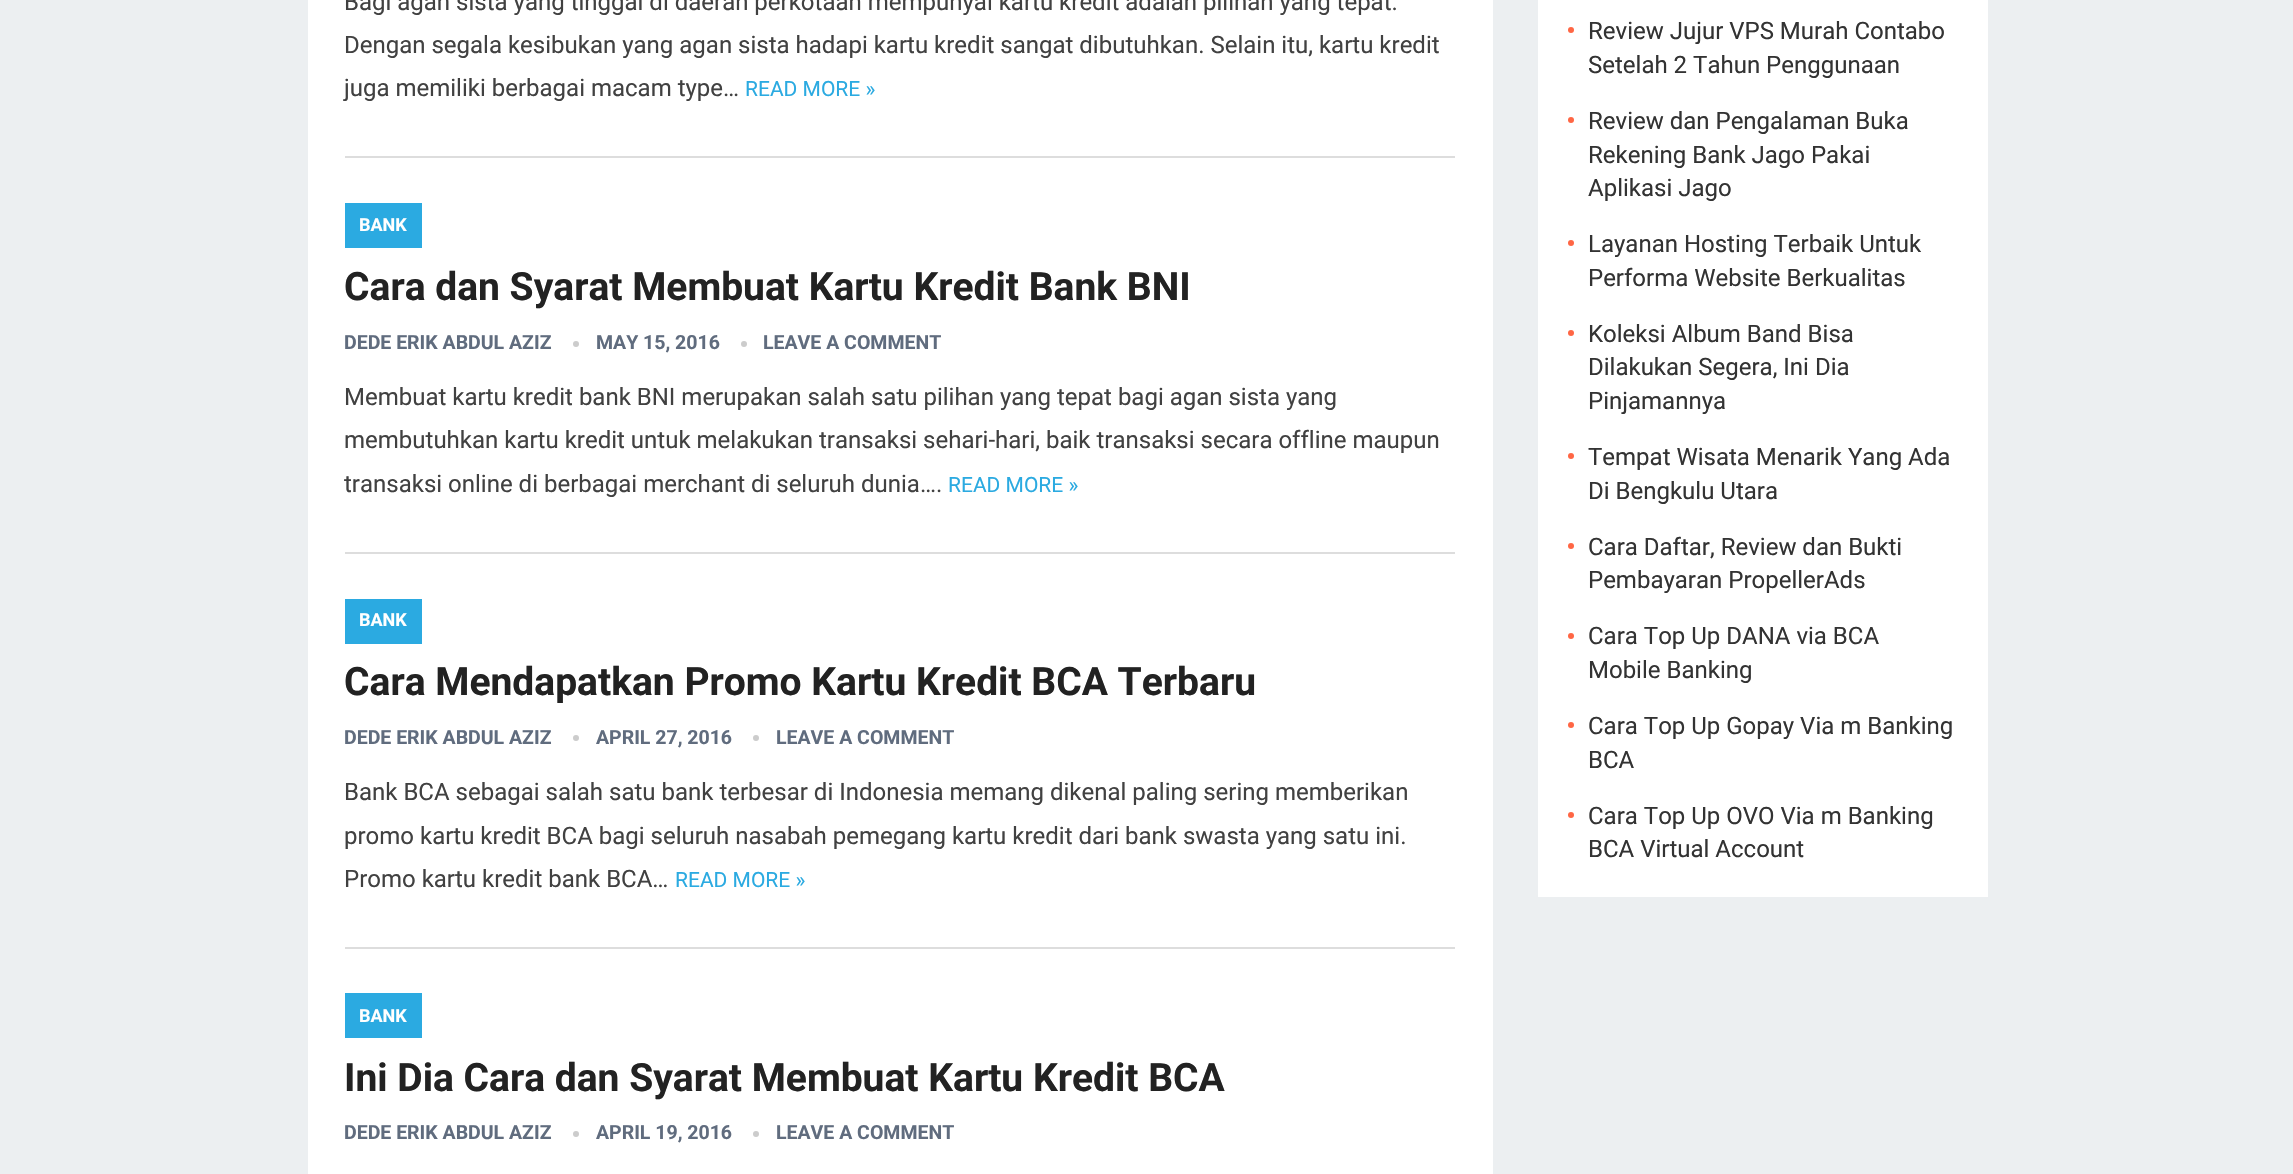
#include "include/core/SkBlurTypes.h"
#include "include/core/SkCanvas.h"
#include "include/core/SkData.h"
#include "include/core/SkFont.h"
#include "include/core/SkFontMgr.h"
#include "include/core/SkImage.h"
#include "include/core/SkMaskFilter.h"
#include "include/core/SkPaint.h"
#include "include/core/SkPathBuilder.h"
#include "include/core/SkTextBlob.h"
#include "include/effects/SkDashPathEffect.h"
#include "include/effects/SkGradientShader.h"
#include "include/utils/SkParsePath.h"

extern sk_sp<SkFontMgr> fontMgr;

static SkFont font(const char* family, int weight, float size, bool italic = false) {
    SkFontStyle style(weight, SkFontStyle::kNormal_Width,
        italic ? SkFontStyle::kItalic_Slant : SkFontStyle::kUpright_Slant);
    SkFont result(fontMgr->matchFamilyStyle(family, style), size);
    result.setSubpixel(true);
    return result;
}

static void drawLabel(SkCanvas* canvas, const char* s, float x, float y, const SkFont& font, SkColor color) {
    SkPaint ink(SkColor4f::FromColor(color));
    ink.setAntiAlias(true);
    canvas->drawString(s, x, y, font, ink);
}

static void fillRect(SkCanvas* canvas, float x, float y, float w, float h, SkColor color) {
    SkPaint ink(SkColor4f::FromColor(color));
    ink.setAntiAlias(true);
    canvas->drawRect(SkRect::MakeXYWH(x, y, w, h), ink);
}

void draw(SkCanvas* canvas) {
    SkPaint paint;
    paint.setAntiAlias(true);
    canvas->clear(0xFFECEFF1);
    fillRect(canvas, 308, 0, 1185, 1174, 0xFFFFFFFF);
    fillRect(canvas, 345, 156, 1110, 2, 0xFFDDDDDD);
    SkFont font1 = font("Roboto", 400, 24);
    drawLabel(canvas, "Bagi agan sista yang tinggal di daerah perkotaan mempunyai kartu kredit adalah pilihan yang tepat.", 344, 10, font1, 0xFF414141);
    drawLabel(canvas, "Dengan segala kesibukan yang agan sista hadapi kartu kredit sangat dibutuhkan. Selain itu, kartu kredit", 344, 53, font1, 0xFF414141);
    drawLabel(canvas, "juga memiliki berbagai macam type…", 344, 96, font1, 0xFF414141);
    SkFont font2 = font("Roboto", 400, 21);
    drawLabel(canvas, "READ MORE »", 745, 96, font2, 0xFF2BAAE1);
    fillRect(canvas, 345, 552, 1110, 2, 0xFFDDDDDD);
    fillRect(canvas, 345, 203, 77, 45, 0xFF2BAAE1);
    SkFont font3 = font("Roboto", 700, 18);
    drawLabel(canvas, "BANK", 359, 231, font3, 0xFFFFFFFF);
    SkFont font4 = font("Roboto", 700, 39);
    drawLabel(canvas, "Cara dan Syarat Membuat Kartu Kredit Bank BNI", 344, 300, font4, 0xFF222222);
    SkFont font5 = font("Roboto", 700, 19.5f);
    drawLabel(canvas, "DEDE ERIK ABDUL AZIZ", 344, 349, font5, 0xFF606C7E);
    paint.setColor(0xFFCCCCCC);
    canvas->drawCircle(576, 344, 3, paint);
    drawLabel(canvas, "MAY 15, 2016", 596, 349, font5, 0xFF606C7E);
    canvas->drawCircle(744, 344, 3, paint);
    drawLabel(canvas, "LEAVE A COMMENT", 763, 349, font5, 0xFF606C7E);
    drawLabel(canvas, "Membuat kartu kredit bank BNI merupakan salah satu pilihan yang tepat bagi agan sista yang", 344, 405, font1, 0xFF414141);
    drawLabel(canvas, "membutuhkan kartu kredit untuk melakukan transaksi sehari-hari, baik transaksi secara offline maupun", 344, 448, font1, 0xFF414141);
    drawLabel(canvas, "transaksi online di berbagai merchant di seluruh dunia….", 344, 492, font1, 0xFF414141);
    drawLabel(canvas, "READ MORE »", 948, 492, font2, 0xFF2BAAE1);
    fillRect(canvas, 345, 947, 1110, 2, 0xFFDDDDDD);
    fillRect(canvas, 345, 599, 77, 45, 0xFF2BAAE1);
    drawLabel(canvas, "BANK", 359, 626, font3, 0xFFFFFFFF);
    drawLabel(canvas, "Cara Mendapatkan Promo Kartu Kredit BCA Terbaru", 344, 695, font4, 0xFF222222);
    drawLabel(canvas, "DEDE ERIK ABDUL AZIZ", 344, 744, font5, 0xFF606C7E);
    canvas->drawCircle(576, 738, 3, paint);
    drawLabel(canvas, "APRIL 27, 2016", 596, 744, font5, 0xFF606C7E);
    canvas->drawCircle(756, 738, 3, paint);
    drawLabel(canvas, "LEAVE A COMMENT", 776, 744, font5, 0xFF606C7E);
    drawLabel(canvas, "Bank BCA sebagai salah satu bank terbesar di Indonesia memang dikenal paling sering memberikan", 344, 800, font1, 0xFF414141);
    drawLabel(canvas, "promo kartu kredit BCA bagi seluruh nasabah pemegang kartu kredit dari bank swasta yang satu ini.", 344, 844, font1, 0xFF414141);
    drawLabel(canvas, "Promo kartu kredit bank BCA…", 344, 887, font1, 0xFF414141);
    drawLabel(canvas, "READ MORE »", 675, 887, font2, 0xFF2BAAE1);
    fillRect(canvas, 345, 993, 77, 45, 0xFF2BAAE1);
    drawLabel(canvas, "BANK", 359, 1022, font3, 0xFFFFFFFF);
    drawLabel(canvas, "Ini Dia Cara dan Syarat Membuat Kartu Kredit BCA", 344, 1091, font4, 0xFF222222);
    drawLabel(canvas, "DEDE ERIK ABDUL AZIZ", 344, 1139, font5, 0xFF606C7E);
    canvas->drawCircle(576, 1134, 3, paint);
    drawLabel(canvas, "APRIL 19, 2016", 596, 1139, font5, 0xFF606C7E);
    canvas->drawCircle(756, 1134, 3, paint);
    drawLabel(canvas, "LEAVE A COMMENT", 776, 1139, font5, 0xFF606C7E);
    fillRect(canvas, 1538, 0, 450, 897, 0xFFFFFFFF);
    paint.setColor(0xFFFF6644);
    canvas->drawCircle(1571, 30, 3, paint);
    drawLabel(canvas, "Review Jujur VPS Murah Contabo", 1588, 39, font1, 0xFF333333);
    drawLabel(canvas, "Setelah 2 Tahun Penggunaan", 1588, 73, font1, 0xFF333333);
    canvas->drawCircle(1571, 120, 3, paint);
    drawLabel(canvas, "Review dan Pengalaman Buka", 1588, 129, font1, 0xFF333333);
    drawLabel(canvas, "Rekening Bank Jago Pakai", 1588, 163, font1, 0xFF333333);
    drawLabel(canvas, "Aplikasi Jago", 1588, 196, font1, 0xFF333333);
    canvas->drawCircle(1571, 243, 3, paint);
    drawLabel(canvas, "Layanan Hosting Terbaik Untuk", 1588, 252, font1, 0xFF333333);
    drawLabel(canvas, "Performa Website Berkualitas", 1588, 286, font1, 0xFF333333);
    canvas->drawCircle(1571, 333, 3, paint);
    drawLabel(canvas, "Koleksi Album Band Bisa", 1588, 342, font1, 0xFF333333);
    drawLabel(canvas, "Dilakukan Segera, Ini Dia", 1588, 375, font1, 0xFF333333);
    drawLabel(canvas, "Pinjamannya", 1588, 409, font1, 0xFF333333);
    canvas->drawCircle(1571, 456, 3, paint);
    drawLabel(canvas, "Tempat Wisata Menarik Yang Ada", 1588, 465, font1, 0xFF333333);
    drawLabel(canvas, "Di Bengkulu Utara", 1588, 499, font1, 0xFF333333);
    canvas->drawCircle(1571, 546, 3, paint);
    drawLabel(canvas, "Cara Daftar, Review dan Bukti", 1588, 555, font1, 0xFF333333);
    drawLabel(canvas, "Pembayaran PropellerAds", 1588, 588, font1, 0xFF333333);
    canvas->drawCircle(1571, 636, 3, paint);
    drawLabel(canvas, "Cara Top Up DANA via BCA", 1588, 644, font1, 0xFF333333);
    drawLabel(canvas, "Mobile Banking", 1588, 678, font1, 0xFF333333);
    canvas->drawCircle(1571, 725, 3, paint);
    drawLabel(canvas, "Cara Top Up Gopay Via m Banking", 1588, 734, font1, 0xFF333333);
    drawLabel(canvas, "BCA", 1588, 768, font1, 0xFF333333);
    canvas->drawCircle(1571, 815, 3, paint);
    drawLabel(canvas, "Cara Top Up OVO Via m Banking", 1588, 824, font1, 0xFF333333);
    drawLabel(canvas, "BCA Virtual Account", 1588, 857, font1, 0xFF333333);
}
